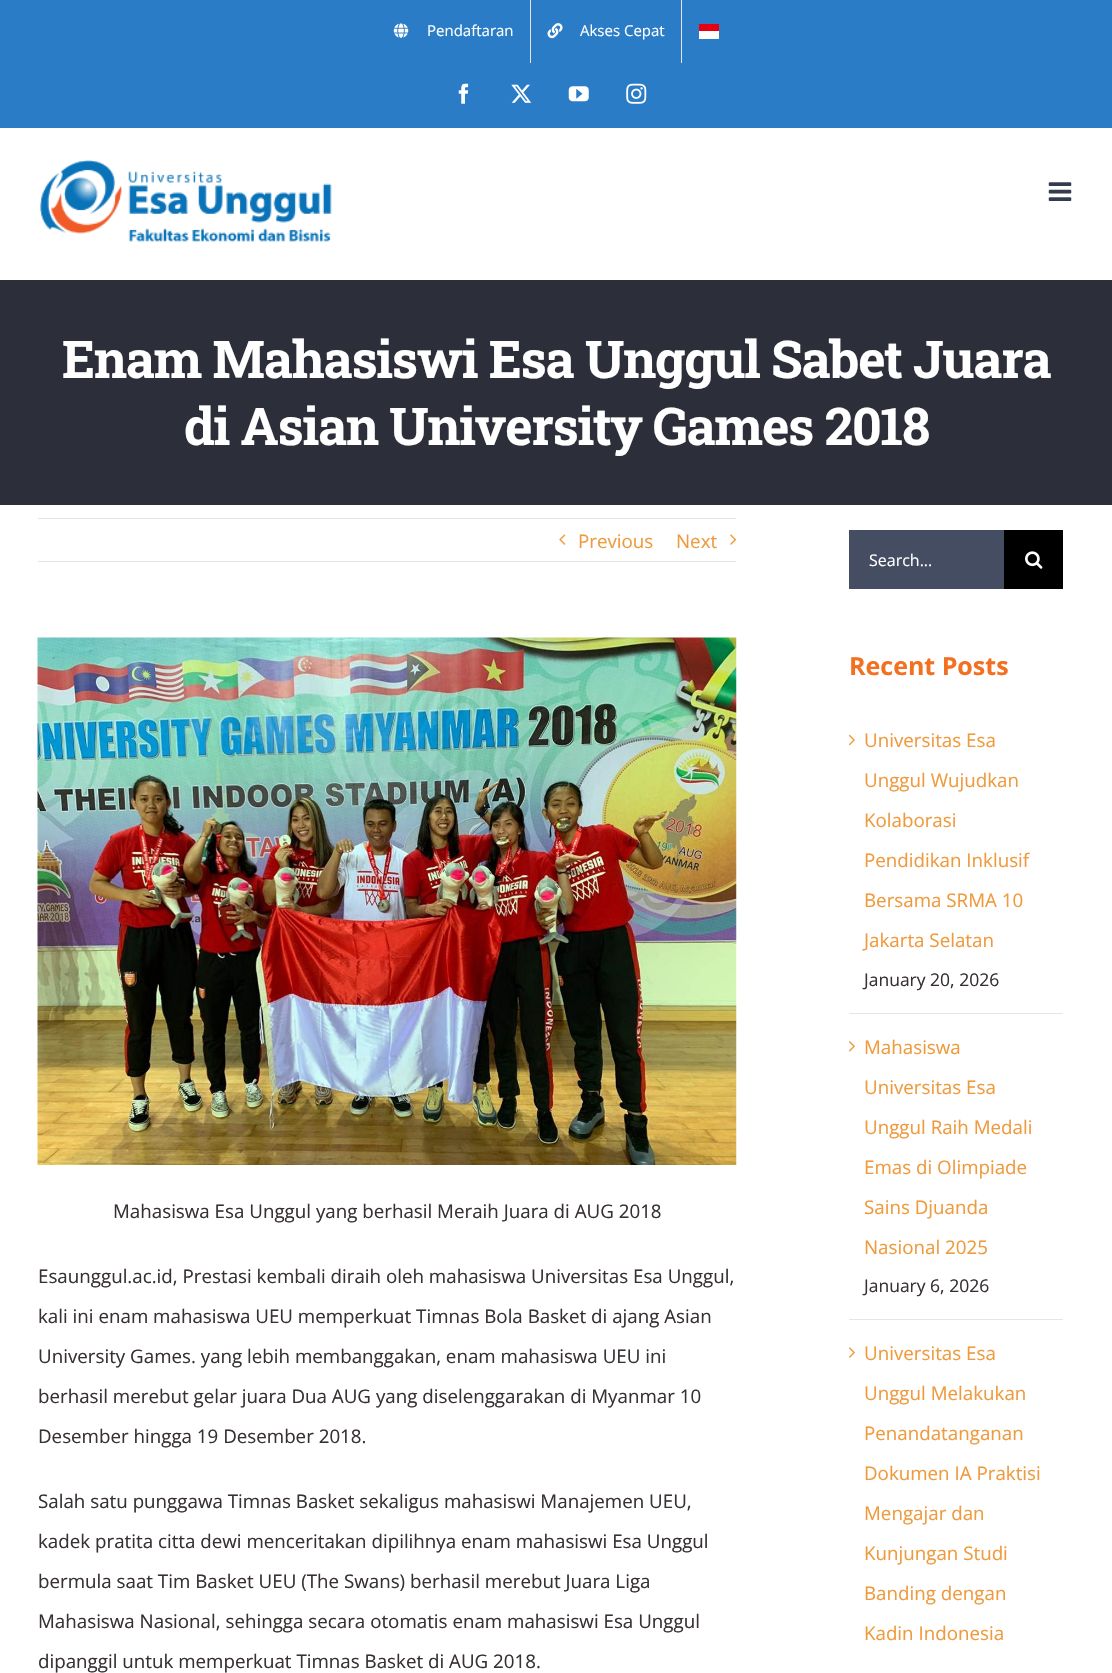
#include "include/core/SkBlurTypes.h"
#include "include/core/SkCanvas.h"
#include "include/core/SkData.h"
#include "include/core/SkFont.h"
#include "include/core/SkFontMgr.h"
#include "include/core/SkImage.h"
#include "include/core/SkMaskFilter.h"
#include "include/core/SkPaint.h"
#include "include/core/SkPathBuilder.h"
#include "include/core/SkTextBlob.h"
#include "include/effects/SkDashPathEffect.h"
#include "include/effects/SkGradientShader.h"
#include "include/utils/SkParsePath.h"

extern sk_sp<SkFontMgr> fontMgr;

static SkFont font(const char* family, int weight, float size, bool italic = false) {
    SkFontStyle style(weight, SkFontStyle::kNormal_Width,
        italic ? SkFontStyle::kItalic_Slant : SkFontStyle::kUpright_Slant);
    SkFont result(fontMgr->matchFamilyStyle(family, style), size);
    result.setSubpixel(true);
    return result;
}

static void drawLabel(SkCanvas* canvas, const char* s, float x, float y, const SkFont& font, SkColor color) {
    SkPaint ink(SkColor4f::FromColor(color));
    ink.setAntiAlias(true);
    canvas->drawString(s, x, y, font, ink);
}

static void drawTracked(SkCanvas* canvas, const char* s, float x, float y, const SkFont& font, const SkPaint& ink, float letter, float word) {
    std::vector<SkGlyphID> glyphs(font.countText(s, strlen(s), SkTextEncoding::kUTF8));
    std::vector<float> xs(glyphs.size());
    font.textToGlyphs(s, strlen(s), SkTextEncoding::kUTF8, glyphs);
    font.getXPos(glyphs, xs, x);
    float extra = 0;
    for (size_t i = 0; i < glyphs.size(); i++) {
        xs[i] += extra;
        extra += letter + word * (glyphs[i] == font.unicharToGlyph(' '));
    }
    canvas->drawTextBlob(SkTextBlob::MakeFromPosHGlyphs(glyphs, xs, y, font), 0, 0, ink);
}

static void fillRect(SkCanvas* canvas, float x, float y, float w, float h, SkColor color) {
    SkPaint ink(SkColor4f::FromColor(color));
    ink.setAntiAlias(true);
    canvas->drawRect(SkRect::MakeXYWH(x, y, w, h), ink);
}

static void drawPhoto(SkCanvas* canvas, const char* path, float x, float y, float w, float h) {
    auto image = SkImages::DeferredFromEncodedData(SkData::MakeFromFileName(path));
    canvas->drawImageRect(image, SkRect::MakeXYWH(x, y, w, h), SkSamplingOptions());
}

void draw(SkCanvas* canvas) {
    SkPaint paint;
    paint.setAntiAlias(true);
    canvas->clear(0xFFFFFFFF);
    fillRect(canvas, 0, 0, 1112, 128, 0xFF2A7CC7);
    drawPhoto(canvas, "assets/img1.png", 393, 23, 16, 15);
    SkFont font1 = font("Open Sans", 400, 15);
    drawLabel(canvas, "Pendaftaran", 427, 36, font1, 0xFFFFFFFF);
    fillRect(canvas, 530, 0, 1, 63, 0xFFE5E5E5);
    drawPhoto(canvas, "assets/img2.png", 547, 23, 16, 16);
    drawLabel(canvas, "Akses Cepat", 580, 36, font1, 0xFFFFFFFF);
    fillRect(canvas, 681, 0, 1, 63, 0xFFE5E5E5);
    fillRect(canvas, 699, 24, 20, 7, 0xFFE70011);
    fillRect(canvas, 699, 31, 20, 8, 0xFFFFFFFF);
    drawPhoto(canvas, "assets/img3.png", 458, 83, 11, 21);
    drawPhoto(canvas, "assets/img4.png", 511, 84, 21, 19);
    drawPhoto(canvas, "assets/img5.png", 568, 86, 21, 16);
    drawPhoto(canvas, "assets/img6.png", 626, 83, 21, 21);
    drawPhoto(canvas, "assets/img7.png", 39, 160, 293, 82);
    drawPhoto(canvas, "assets/img8.png", 1048, 182, 24, 19);
    fillRect(canvas, 0, 280, 1112, 225, 0xFF2C2F39);
    SkFont font2 = font("Roboto Slab", 700, 51.9f);
    paint.setColor(0xFFFFFFFF);
    drawTracked(canvas, "Enam Mahasiswi Esa Unggul Sabet Juara", 62, 378, font2, paint, -1.25f, 0);
    drawTracked(canvas, "di Asian University Games 2018", 184, 445, font2, paint, -1.25f, 0);
    fillRect(canvas, 38, 518, 698, 1, 0xFFE7E4E2);
    fillRect(canvas, 38, 561, 698, 1, 0xFFE7E4E2);
    drawPhoto(canvas, "assets/img9.png", 559, 534, 7, 11);
    SkFont font3 = font("Open Sans", 400, 18.75f);
    drawLabel(canvas, "Previous", 578, 548, font3, 0xFFEF9A3D);
    drawLabel(canvas, "Next", 676, 548, font3, 0xFFEF9A3D);
    drawPhoto(canvas, "assets/img10.png", 730, 534, 7, 11);
    drawPhoto(canvas, "assets/img11.png", 37, 637, 700, 528);
    drawLabel(canvas, "Mahasiswa Esa Unggul yang berhasil Meraih Juara di AUG 2018", 113, 1218, font3, 0xFF383131);
    drawLabel(canvas, "Esaunggul.ac.id, Prestasi kembali diraih oleh mahasiswa Universitas Esa Unggul,", 38, 1283, font3, 0xFF383131);
    drawLabel(canvas, "kali ini enam mahasiswa UEU memperkuat Timnas Bola Basket di ajang Asian", 38, 1323, font3, 0xFF383131);
    drawLabel(canvas, "University Games. yang lebih membanggakan, enam mahasiswa UEU ini", 38, 1363, font3, 0xFF383131);
    drawLabel(canvas, "berhasil merebut gelar juara Dua AUG yang diselenggarakan di Myanmar 10", 38, 1403, font3, 0xFF383131);
    drawLabel(canvas, "Desember hingga 19 Desember 2018.", 38, 1443, font3, 0xFF383131);
    drawLabel(canvas, "Salah satu punggawa Timnas Basket sekaligus mahasiswi Manajemen UEU,", 38, 1508, font3, 0xFF383131);
    drawLabel(canvas, "kadek pratita citta dewi menceritakan dipilihnya enam mahasiswi Esa Unggul", 38, 1548, font3, 0xFF383131);
    drawLabel(canvas, "bermula saat Tim Basket UEU (The Swans) berhasil merebut Juara Liga", 38, 1588, font3, 0xFF383131);
    drawLabel(canvas, "Mahasiswa Nasional, sehingga secara otomatis enam mahasiswi Esa Unggul", 38, 1628, font3, 0xFF383131);
    drawLabel(canvas, "dipanggil untuk memperkuat Timnas Basket di AUG 2018.", 38, 1668, font3, 0xFF383131);
    fillRect(canvas, 849, 530, 155, 59, 0xFF444D62);
    SkFont font4 = font("Open Sans", 400, 16);
    drawLabel(canvas, "Search...", 869, 566, font4, 0xFFFFFFFF);
    fillRect(canvas, 1004, 530, 59, 59, 0xFF000000);
    drawPhoto(canvas, "assets/img12.png", 1025, 551, 18, 18);
    SkFont font5 = font("Open Sans", 700, 25);
    drawLabel(canvas, "Recent Posts", 849, 675, font5, 0xFFF37021);
    fillRect(canvas, 849, 1013, 214, 1, 0xFFE7E4E2);
    drawPhoto(canvas, "assets/img13.png", 848, 734, 7, 12);
    drawLabel(canvas, "Universitas Esa", 864, 747, font3, 0xFFEF9A3D);
    drawLabel(canvas, "Unggul Wujudkan", 864, 787, font3, 0xFFEF9A3D);
    drawLabel(canvas, "Kolaborasi", 864, 827, font3, 0xFFEF9A3D);
    drawLabel(canvas, "Pendidikan Inklusif", 864, 867, font3, 0xFFEF9A3D);
    drawLabel(canvas, "Bersama SRMA 10", 864, 907, font3, 0xFFEF9A3D);
    drawLabel(canvas, "Jakarta Selatan", 864, 947, font3, 0xFFEF9A3D);
    SkFont font6 = font("Open Sans", 400, 17.5f);
    drawLabel(canvas, "January 20, 2026", 864, 986, font6, 0xFF383131);
    fillRect(canvas, 849, 1319, 214, 1, 0xFFE7E4E2);
    drawPhoto(canvas, "assets/img14.png", 848, 1041, 7, 11);
    drawLabel(canvas, "Mahasiswa", 864, 1054, font3, 0xFFEF9A3D);
    drawLabel(canvas, "Universitas Esa", 864, 1094, font3, 0xFFEF9A3D);
    drawLabel(canvas, "Unggul Raih Medali", 864, 1134, font3, 0xFFEF9A3D);
    drawLabel(canvas, "Emas di Olimpiade", 864, 1174, font3, 0xFFEF9A3D);
    drawLabel(canvas, "Sains Djuanda", 864, 1214, font3, 0xFFEF9A3D);
    drawLabel(canvas, "Nasional 2025", 864, 1254, font3, 0xFFEF9A3D);
    drawLabel(canvas, "January 6, 2026", 864, 1292, font6, 0xFF383131);
    drawPhoto(canvas, "assets/img15.png", 848, 1347, 7, 11);
    drawLabel(canvas, "Universitas Esa", 864, 1360, font3, 0xFFEF9A3D);
    drawLabel(canvas, "Unggul Melakukan", 864, 1400, font3, 0xFFEF9A3D);
    drawLabel(canvas, "Penandatanganan", 864, 1440, font3, 0xFFEF9A3D);
    drawLabel(canvas, "Dokumen IA Praktisi", 864, 1480, font3, 0xFFEF9A3D);
    drawLabel(canvas, "Mengajar dan", 864, 1520, font3, 0xFFEF9A3D);
    drawLabel(canvas, "Kunjungan Studi", 864, 1560, font3, 0xFFEF9A3D);
    drawLabel(canvas, "Banding dengan", 864, 1600, font3, 0xFFEF9A3D);
    drawLabel(canvas, "Kadin Indonesia", 864, 1640, font3, 0xFFEF9A3D);
}
